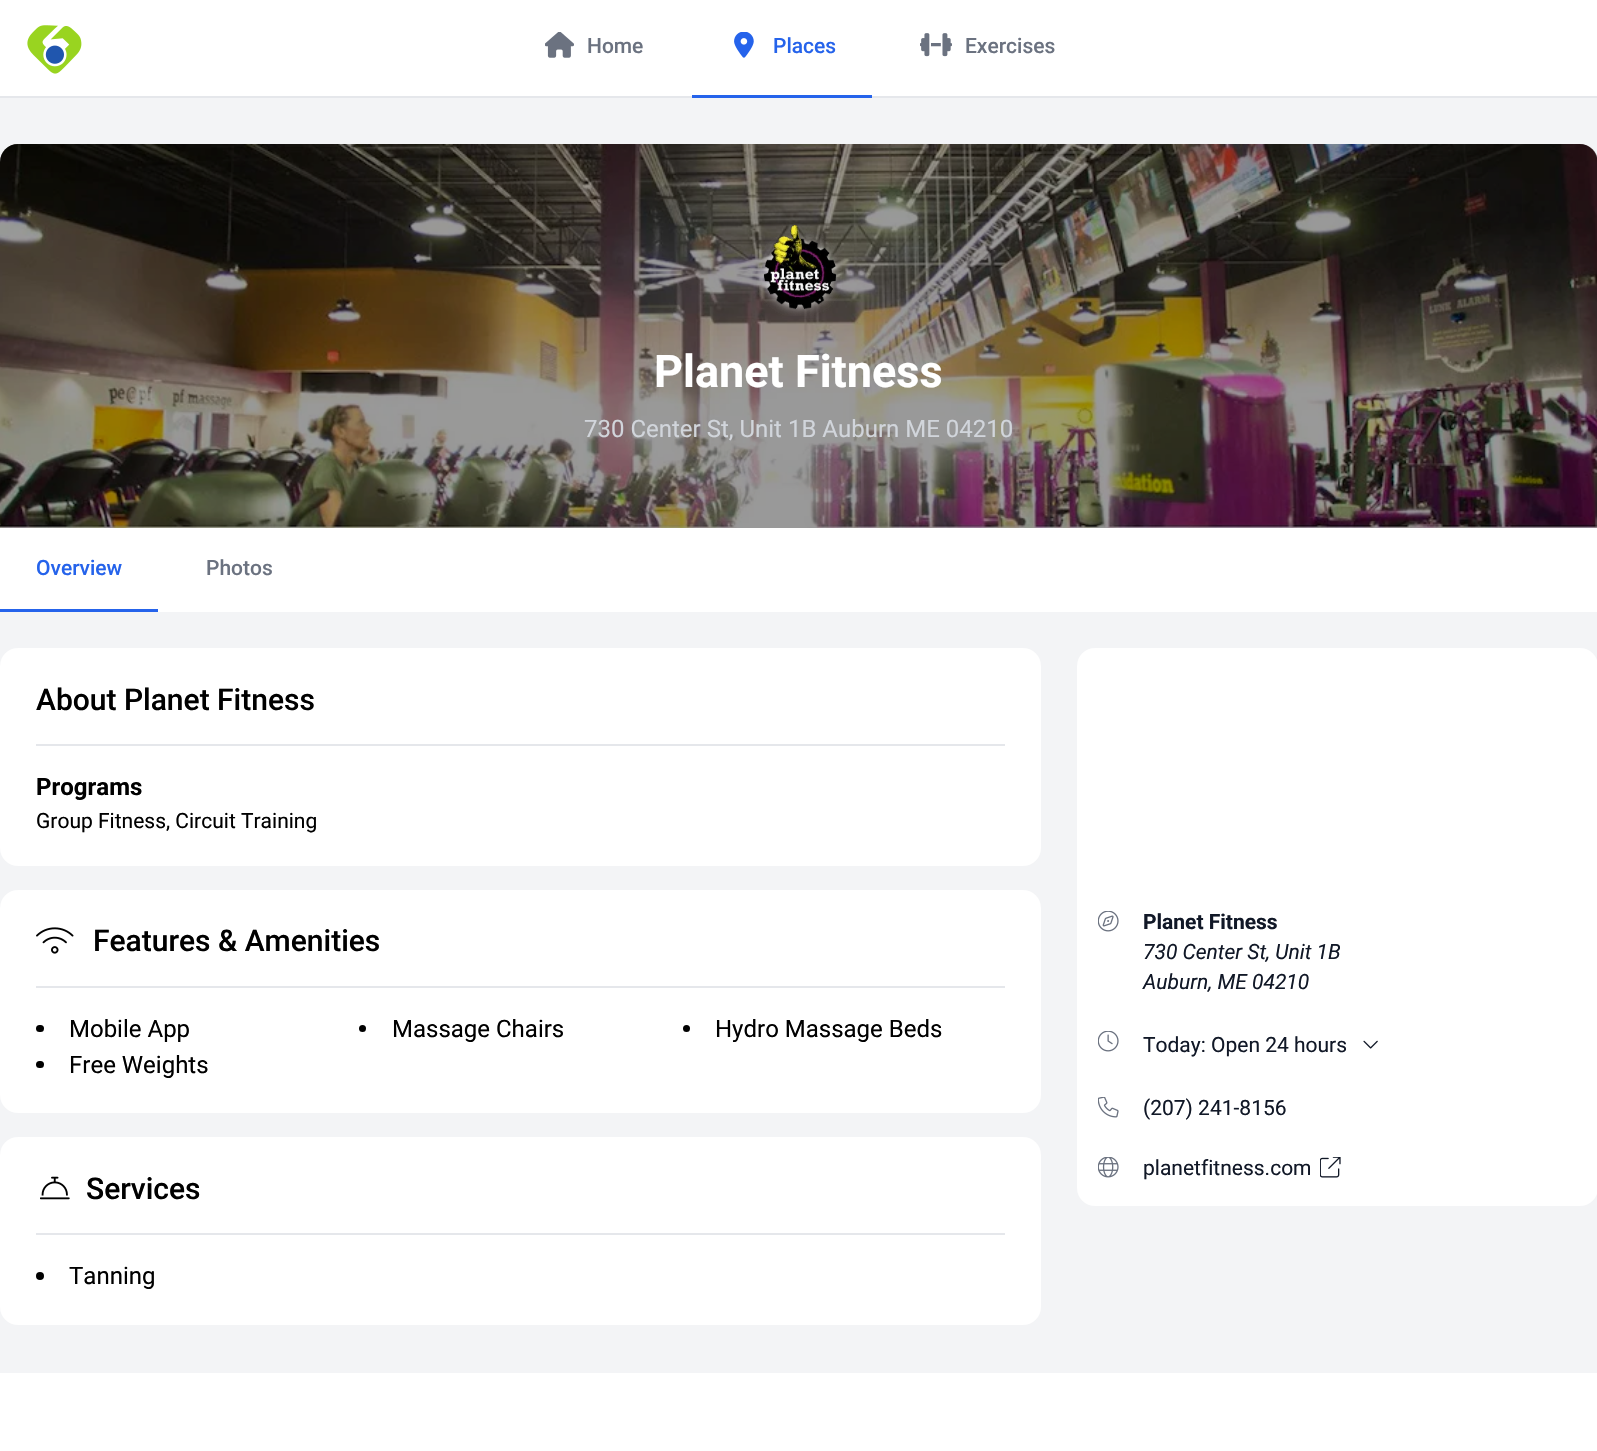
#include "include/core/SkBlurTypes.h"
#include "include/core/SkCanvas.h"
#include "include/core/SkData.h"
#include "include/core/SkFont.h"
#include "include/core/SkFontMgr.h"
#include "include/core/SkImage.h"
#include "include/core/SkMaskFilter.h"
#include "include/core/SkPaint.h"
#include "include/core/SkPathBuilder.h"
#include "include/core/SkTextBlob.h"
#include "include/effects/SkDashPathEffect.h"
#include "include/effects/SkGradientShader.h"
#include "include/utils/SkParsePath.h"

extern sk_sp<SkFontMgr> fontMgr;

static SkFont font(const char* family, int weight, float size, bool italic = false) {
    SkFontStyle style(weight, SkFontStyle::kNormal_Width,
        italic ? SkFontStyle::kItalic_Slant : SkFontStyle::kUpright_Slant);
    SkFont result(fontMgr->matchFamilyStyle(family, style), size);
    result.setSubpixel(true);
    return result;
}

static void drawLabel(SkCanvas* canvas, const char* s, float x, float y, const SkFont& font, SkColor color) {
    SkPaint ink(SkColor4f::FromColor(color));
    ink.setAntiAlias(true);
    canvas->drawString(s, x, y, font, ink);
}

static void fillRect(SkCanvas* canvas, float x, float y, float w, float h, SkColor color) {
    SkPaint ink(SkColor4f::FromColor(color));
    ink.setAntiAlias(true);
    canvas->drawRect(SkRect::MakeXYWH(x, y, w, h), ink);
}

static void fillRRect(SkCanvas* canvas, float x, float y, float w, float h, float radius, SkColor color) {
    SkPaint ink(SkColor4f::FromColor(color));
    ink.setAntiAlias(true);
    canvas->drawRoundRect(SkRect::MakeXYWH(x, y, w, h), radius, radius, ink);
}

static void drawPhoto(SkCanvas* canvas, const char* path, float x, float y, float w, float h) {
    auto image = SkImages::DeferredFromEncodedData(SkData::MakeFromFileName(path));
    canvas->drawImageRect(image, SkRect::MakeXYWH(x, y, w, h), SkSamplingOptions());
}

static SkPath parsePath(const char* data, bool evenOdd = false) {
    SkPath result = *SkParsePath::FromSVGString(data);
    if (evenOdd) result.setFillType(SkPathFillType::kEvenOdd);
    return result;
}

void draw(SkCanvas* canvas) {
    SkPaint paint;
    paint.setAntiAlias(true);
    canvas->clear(0xFFFFFFFF);
    fillRect(canvas, 0, 96, 1597, 2, 0xFFE5E7EB);
    drawPhoto(canvas, "assets/img1.png", 27, 25, 55, 49);
    drawPhoto(canvas, "assets/img2.png", 545, 32, 29, 26);
    SkFont font1 = font("Roboto", 500, 21);
    drawLabel(canvas, "Home", 587, 53, font1, 0xFF6B7280);
    drawPhoto(canvas, "assets/img3.png", 734, 32, 20, 26);
    drawLabel(canvas, "Places", 773, 53, font1, 0xFF2563EB);
    fillRect(canvas, 692, 95, 180, 3, 0xFF2563EB);
    drawPhoto(canvas, "assets/img4.png", 920, 33, 32, 24);
    drawLabel(canvas, "Exercises", 965, 53, font1, 0xFF6B7280);
    fillRect(canvas, 0, 98, 1597, 1275, 0xFFF3F4F6);
    drawPhoto(canvas, "assets/img5.png", 0, 144, 1597, 384);
    paint.setColor(0x66000000);
    canvas->drawPath(parsePath("M18 144H1580C1590 144 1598 152 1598 162V528H0V162C0 152 8 144 18 144Z"), paint);
    drawPhoto(canvas, "assets/img6.png", 757, 225, 85, 91);
    SkFont font2 = font("Roboto", 700, 45);
    drawLabel(canvas, "Planet Fitness", 654, 387, font2, 0xFFFFFFFF);
    SkFont font3 = font("Roboto", 400, 24);
    drawLabel(canvas, "730 Center St, Unit 1B Auburn ME 04210", 584, 437, font3, 0xFFD1D5DB);
    fillRect(canvas, 0, 528, 1597, 84, 0xFFFFFFFF);
    drawLabel(canvas, "Overview", 36, 575, font1, 0xFF2563EB);
    fillRect(canvas, 0, 609, 158, 3, 0xFF2563EB);
    drawLabel(canvas, "Photos", 206, 575, font1, 0xFF6B7280);
    fillRRect(canvas, 0, 648, 1041, 218, 18, 0xFFFFFFFF);
    SkFont font4 = font("Roboto", 500, 30);
    drawLabel(canvas, "About Planet Fitness", 36, 710, font4, 0xFF000000);
    fillRect(canvas, 36, 744, 969, 2, 0xFFE5E7EB);
    SkFont font5 = font("Roboto", 700, 24);
    drawLabel(canvas, "Programs", 36, 795, font5, 0xFF000000);
    SkFont font6 = font("Roboto", 400, 21);
    drawLabel(canvas, "Group Fitness, Circuit Training", 36, 828, font6, 0xFF000000);
    fillRRect(canvas, 0, 890, 1041, 223, 18, 0xFFFFFFFF);
    drawPhoto(canvas, "assets/img7.png", 36, 927, 38, 27);
    drawLabel(canvas, "Features & Amenities", 93, 951, font4, 0xFF000000);
    fillRect(canvas, 36, 986, 969, 2, 0xFFE5E7EB);
    fillRRect(canvas, 36, 1025, 8, 7, 3.5f, 0xFF000000);
    drawLabel(canvas, "Mobile App", 69, 1037, font3, 0xFF000000);
    paint.setColor(0xFF000000);
    canvas->drawCircle(362.5f, 1028.5f, 3.5f, paint);
    drawLabel(canvas, "Massage Chairs", 392, 1037, font3, 0xFF000000);
    canvas->drawCircle(686.5f, 1028.5f, 3.5f, paint);
    drawLabel(canvas, "Hydro Massage Beds", 715, 1037, font3, 0xFF000000);
    fillRRect(canvas, 36, 1061, 8, 7, 3.5f, 0xFF000000);
    drawLabel(canvas, "Free Weights", 69, 1073, font3, 0xFF000000);
    fillRRect(canvas, 0, 1137, 1041, 188, 18, 0xFFFFFFFF);
    drawPhoto(canvas, "assets/img8.png", 40, 1176, 30, 24);
    drawLabel(canvas, "Services", 86, 1199, font4, 0xFF000000);
    fillRect(canvas, 36, 1233, 969, 2, 0xFFE5E7EB);
    canvas->drawCircle(40, 1276, 4, paint);
    drawLabel(canvas, "Tanning", 69, 1284, font3, 0xFF000000);
    fillRRect(canvas, 1077, 648, 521, 558, 18, 0xFFFFFFFF);
    drawPhoto(canvas, "assets/img9.png", 1098, 911, 21, 21);
    SkFont font7 = font("Roboto", 700, 21);
    drawLabel(canvas, "Planet Fitness", 1143, 929, font7, 0xFF111827);
    SkFont font8 = font("Roboto", 400, 21, true);
    drawLabel(canvas, "730 Center St, Unit 1B", 1143, 959, font8, 0xFF111827);
    drawLabel(canvas, "Auburn, ME 04210", 1143, 989, font8, 0xFF111827);
    drawPhoto(canvas, "assets/img10.png", 1098, 1031, 21, 21);
    drawLabel(canvas, "Today: Open 24 hours", 1143, 1052, font6, 0xFF111827);
    drawPhoto(canvas, "assets/img11.png", 1363, 1040, 15, 9);
    drawPhoto(canvas, "assets/img12.png", 1098, 1097, 21, 21);
    drawLabel(canvas, "(207) 241-8156", 1143, 1115, font6, 0xFF111827);
    drawPhoto(canvas, "assets/img13.png", 1098, 1157, 21, 21);
    drawLabel(canvas, "planetfitness.com", 1143, 1175, font6, 0xFF111827);
    drawPhoto(canvas, "assets/img14.png", 1320, 1157, 21, 21);
}
